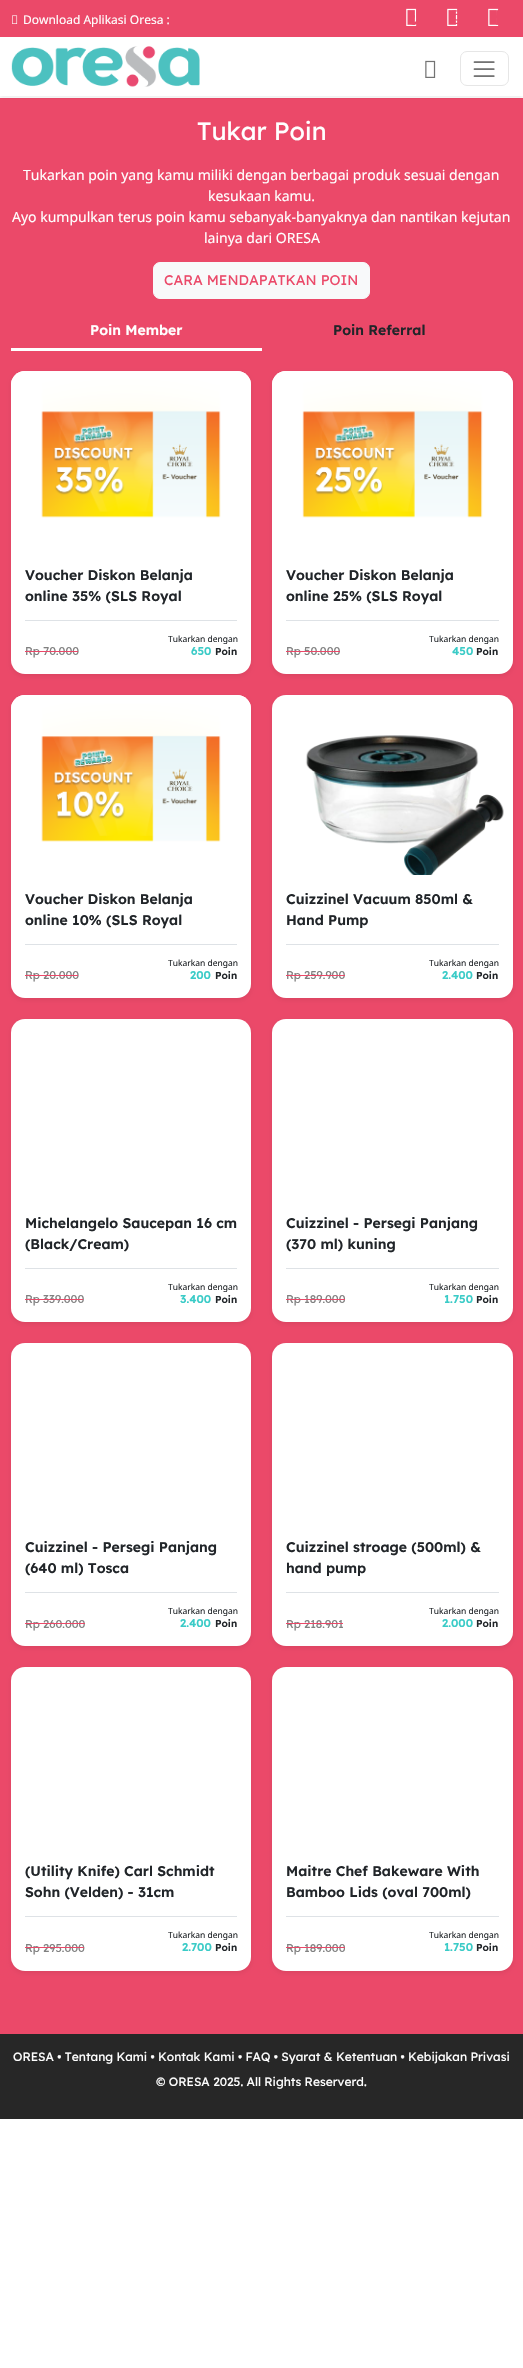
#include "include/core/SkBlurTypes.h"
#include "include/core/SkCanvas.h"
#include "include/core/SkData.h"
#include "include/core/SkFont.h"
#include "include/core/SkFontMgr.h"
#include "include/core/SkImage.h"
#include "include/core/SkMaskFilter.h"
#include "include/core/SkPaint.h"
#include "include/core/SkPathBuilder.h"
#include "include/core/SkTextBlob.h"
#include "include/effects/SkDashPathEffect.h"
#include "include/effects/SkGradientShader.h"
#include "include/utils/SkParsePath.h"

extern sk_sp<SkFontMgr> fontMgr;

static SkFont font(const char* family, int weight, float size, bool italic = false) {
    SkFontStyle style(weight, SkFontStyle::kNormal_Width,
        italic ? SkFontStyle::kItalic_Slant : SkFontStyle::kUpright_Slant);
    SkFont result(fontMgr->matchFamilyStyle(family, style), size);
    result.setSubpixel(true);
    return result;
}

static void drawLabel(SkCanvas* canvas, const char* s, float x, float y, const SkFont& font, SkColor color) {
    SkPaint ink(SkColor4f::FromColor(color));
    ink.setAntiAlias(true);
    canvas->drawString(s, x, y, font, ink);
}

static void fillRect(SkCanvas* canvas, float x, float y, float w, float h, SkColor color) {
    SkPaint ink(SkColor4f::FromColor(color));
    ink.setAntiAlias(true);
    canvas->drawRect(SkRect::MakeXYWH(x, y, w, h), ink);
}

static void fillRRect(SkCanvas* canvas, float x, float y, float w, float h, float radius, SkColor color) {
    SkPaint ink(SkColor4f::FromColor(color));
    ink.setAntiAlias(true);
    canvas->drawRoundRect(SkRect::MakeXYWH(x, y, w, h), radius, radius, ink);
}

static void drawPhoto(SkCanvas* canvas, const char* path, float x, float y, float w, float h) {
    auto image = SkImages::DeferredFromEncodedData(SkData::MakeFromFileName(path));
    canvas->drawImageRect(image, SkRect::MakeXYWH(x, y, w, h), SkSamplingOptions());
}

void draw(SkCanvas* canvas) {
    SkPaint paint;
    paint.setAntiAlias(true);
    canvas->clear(0xFFFFFFFF);
    fillRect(canvas, 0, 98, 523, 1936, 0xFFEB4969);
    canvas->save();
    canvas->clipRect(SkRect::MakeXYWH(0, 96, 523, 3));
    paint.setColor(0x12000000);
    paint.setMaskFilter(SkMaskFilter::MakeBlur(kNormal_SkBlurStyle, 2));
    canvas->drawRect(SkRect::MakeXYWH(0, 39, 523, 59), paint);
    paint.setMaskFilter(nullptr);
    canvas->restore();
    fillRect(canvas, 0, 0, 523, 37, 0xFFEB4969);
    drawPhoto(canvas, "assets/img1.png", 12, 15, 6, 9);
    SkFont font1 = font("Noto Sans", 400, 12);
    drawLabel(canvas, "Download Aplikasi Oresa :", 23, 24, font1, 0xFFFFFFFF);
    drawPhoto(canvas, "assets/img2.png", 406, 8, 11, 18);
    drawPhoto(canvas, "assets/img3.png", 411, 9, 6, 16);
    drawPhoto(canvas, "assets/img2.png", 447, 8, 11, 18);
    drawPhoto(canvas, "assets/img4.png", 452, 10, 6, 14);
    drawPhoto(canvas, "assets/img2.png", 488, 8, 11, 18);
    drawPhoto(canvas, "assets/img5.png", 496, 9, 3, 16);
    drawPhoto(canvas, "assets/img6.png", 11, 46, 189, 41);
    drawPhoto(canvas, "assets/img7.png", 425, 60, 11, 18);
    paint.setStroke(true);
    paint.setStrokeWidth(1);
    paint.setColor(0xFFE6E6E6);
    canvas->drawRoundRect(SkRect::MakeXYWH(460.5f, 51.5f, 48, 34), 6.5f, 6.5f, paint);
    drawPhoto(canvas, "assets/img8.png", 473, 61, 22, 16);
    SkFont font2 = font("Lexend Deca", 400, 25);
    drawLabel(canvas, "Tukar Poin", 197, 140, font2, 0xFFFFFFFF);
    SkFont font3 = font("Noto Sans", 400, 14);
    drawLabel(canvas, "Tukarkan poin yang kamu miliki dengan berbagai produk sesuai dengan", 23, 180, font3, 0xFFFFFFFF);
    drawLabel(canvas, "kesukaan kamu.", 208, 201, font3, 0xFFFFFFFF);
    drawLabel(canvas, "Ayo kumpulkan terus poin kamu sebanyak-banyaknya dan nantikan kejutan", 12, 222, font3, 0xFFFFFFFF);
    drawLabel(canvas, "lainya dari ORESA", 204, 243, font3, 0xFFFFFFFF);
    paint.setStroke(false);
    paint.setColor(0xFFF8F9FA);
    canvas->drawRoundRect(SkRect::MakeXYWH(153.5f, 262.5f, 216, 36), 6.5f, 6.5f, paint);
    paint.setStroke(true);
    canvas->drawRoundRect(SkRect::MakeXYWH(153.5f, 262.5f, 216, 36), 6.5f, 6.5f, paint);
    SkFont font4 = font("Lexend Deca", 400, 14);
    drawLabel(canvas, "CARA MENDAPATKAN POIN", 164, 285, font4, 0xFFEB4969);
    fillRect(canvas, 11, 348, 251, 3, 0xFFFFFFFF);
    SkFont font5 = font("Lexend Deca", 600, 14);
    drawLabel(canvas, "Poin Member", 90, 335, font5, 0xFFFFFFFF);
    drawLabel(canvas, "Poin Referral", 333, 335, font5, 0xFF212529);
    paint.setStroke(false);
    paint.setColor(0x12000000);
    paint.setMaskFilter(SkMaskFilter::MakeBlur(kNormal_SkBlurStyle, 2));
    canvas->drawRoundRect(SkRect::MakeXYWH(11, 373, 240, 303), 14, 14, paint);
    paint.setMaskFilter(nullptr);
    fillRRect(canvas, 11, 371, 240, 303, 14, 0xFFFFFFFF);
    drawPhoto(canvas, "assets/img9.png", 11, 371, 240, 147);
    drawLabel(canvas, "Voucher Diskon Belanja", 25, 580, font5, 0xFF212529);
    drawLabel(canvas, "online 35% (SLS Royal", 25, 601, font5, 0xFF212529);
    fillRect(canvas, 25, 620, 212, 1, 0xFFDEE2E6);
    SkFont font6 = font("Noto Sans", 400, 8.5f);
    drawLabel(canvas, "Tukarkan dengan", 168, 642, font6, 0xFF212529);
    SkFont font7 = font("Lexend Deca", 400, 11.25f);
    drawLabel(canvas, "Rp 70.000", 25, 655, font7, 0xFF808080);
    fillRect(canvas, 25, 651, 53, 1, 0xFFEB4969);
    SkFont font8 = font("Lexend Deca", 600, 11.25f);
    drawLabel(canvas, "650", 191, 655, font8, 0xFF3ACBC7);
    SkFont font9 = font("Lexend Deca", 600, 10);
    drawLabel(canvas, "Poin", 215, 655, font9, 0xFF212529);
    paint.setMaskFilter(SkMaskFilter::MakeBlur(kNormal_SkBlurStyle, 2));
    canvas->drawRoundRect(SkRect::MakeXYWH(272, 373, 241, 303), 14, 14, paint);
    paint.setMaskFilter(nullptr);
    fillRRect(canvas, 272, 371, 241, 303, 14, 0xFFFFFFFF);
    drawPhoto(canvas, "assets/img10.png", 272, 371, 241, 147);
    drawLabel(canvas, "Voucher Diskon Belanja", 286, 580, font5, 0xFF212529);
    drawLabel(canvas, "online 25% (SLS Royal", 286, 601, font5, 0xFF212529);
    fillRect(canvas, 286, 620, 213, 1, 0xFFDEE2E6);
    drawLabel(canvas, "Tukarkan dengan", 429, 642, font6, 0xFF212529);
    drawLabel(canvas, "Rp 50.000", 286, 655, font7, 0xFF808080);
    fillRect(canvas, 286, 651, 54, 1, 0xFFEB4969);
    drawLabel(canvas, "450", 452, 655, font8, 0xFF3ACBC7);
    drawLabel(canvas, "Poin", 476, 655, font9, 0xFF212529);
    paint.setMaskFilter(SkMaskFilter::MakeBlur(kNormal_SkBlurStyle, 2));
    canvas->drawRoundRect(SkRect::MakeXYWH(11, 697, 240, 303), 14, 14, paint);
    paint.setMaskFilter(nullptr);
    fillRRect(canvas, 11, 695, 240, 303, 14, 0xFFFFFFFF);
    drawPhoto(canvas, "assets/img11.png", 11, 695, 240, 147);
    drawLabel(canvas, "Voucher Diskon Belanja", 25, 904, font5, 0xFF212529);
    drawLabel(canvas, "online 10% (SLS Royal", 25, 925, font5, 0xFF212529);
    fillRect(canvas, 25, 944, 212, 1, 0xFFDEE2E6);
    drawLabel(canvas, "Tukarkan dengan", 168, 966, font6, 0xFF212529);
    drawLabel(canvas, "Rp 20.000", 25, 979, font7, 0xFF808080);
    fillRect(canvas, 25, 975, 53, 1, 0xFFEB4969);
    drawLabel(canvas, "200", 190, 979, font8, 0xFF3ACBC7);
    drawLabel(canvas, "Poin", 215, 979, font9, 0xFF212529);
    paint.setMaskFilter(SkMaskFilter::MakeBlur(kNormal_SkBlurStyle, 2));
    canvas->drawRoundRect(SkRect::MakeXYWH(272, 697, 241, 303), 14, 14, paint);
    paint.setMaskFilter(nullptr);
    fillRRect(canvas, 272, 695, 241, 303, 14, 0xFFFFFFFF);
    drawPhoto(canvas, "assets/img12.png", 305, 735, 199, 140);
    drawLabel(canvas, "Cuizzinel Vacuum 850ml &", 286, 904, font5, 0xFF212529);
    drawLabel(canvas, "Hand Pump", 286, 925, font5, 0xFF212529);
    fillRect(canvas, 286, 944, 213, 1, 0xFFDEE2E6);
    drawLabel(canvas, "Tukarkan dengan", 429, 966, font6, 0xFF212529);
    drawLabel(canvas, "Rp 259.900", 286, 979, font7, 0xFF808080);
    fillRect(canvas, 286, 975, 59, 1, 0xFFEB4969);
    drawLabel(canvas, "2.400", 442, 979, font8, 0xFF3ACBC7);
    drawLabel(canvas, "Poin", 476, 979, font9, 0xFF212529);
    paint.setMaskFilter(SkMaskFilter::MakeBlur(kNormal_SkBlurStyle, 2));
    canvas->drawRoundRect(SkRect::MakeXYWH(11, 1021, 240, 303), 14, 14, paint);
    paint.setMaskFilter(nullptr);
    fillRRect(canvas, 11, 1019, 240, 303, 14, 0xFFFFFFFF);
    drawLabel(canvas, "Michelangelo Saucepan 16 cm", 25, 1228, font5, 0xFF212529);
    drawLabel(canvas, "(Black/Cream)", 25, 1249, font5, 0xFF212529);
    fillRect(canvas, 25, 1268, 212, 1, 0xFFDEE2E6);
    drawLabel(canvas, "Tukarkan dengan", 168, 1290, font6, 0xFF212529);
    drawLabel(canvas, "Rp 339.000", 25, 1303, font7, 0xFF808080);
    fillRect(canvas, 25, 1299, 58, 1, 0xFFEB4969);
    drawLabel(canvas, "3.400", 180, 1303, font8, 0xFF3ACBC7);
    drawLabel(canvas, "Poin", 215, 1303, font9, 0xFF212529);
    paint.setMaskFilter(SkMaskFilter::MakeBlur(kNormal_SkBlurStyle, 2));
    canvas->drawRoundRect(SkRect::MakeXYWH(272, 1021, 241, 303), 14, 14, paint);
    paint.setMaskFilter(nullptr);
    fillRRect(canvas, 272, 1019, 241, 303, 14, 0xFFFFFFFF);
    drawLabel(canvas, "Cuizzinel - Persegi Panjang", 286, 1228, font5, 0xFF212529);
    drawLabel(canvas, "(370 ml) kuning", 286, 1249, font5, 0xFF212529);
    fillRect(canvas, 286, 1268, 213, 1, 0xFFDEE2E6);
    drawLabel(canvas, "Tukarkan dengan", 429, 1290, font6, 0xFF212529);
    drawLabel(canvas, "Rp 189.000", 286, 1303, font7, 0xFF808080);
    fillRect(canvas, 286, 1299, 59, 1, 0xFFEB4969);
    drawLabel(canvas, "1.750", 444, 1303, font8, 0xFF3ACBC7);
    drawLabel(canvas, "Poin", 476, 1303, font9, 0xFF212529);
    paint.setMaskFilter(SkMaskFilter::MakeBlur(kNormal_SkBlurStyle, 2));
    canvas->drawRoundRect(SkRect::MakeXYWH(11, 1345, 240, 303), 14, 14, paint);
    paint.setMaskFilter(nullptr);
    fillRRect(canvas, 11, 1343, 240, 303, 14, 0xFFFFFFFF);
    drawLabel(canvas, "Cuizzinel - Persegi Panjang", 25, 1552, font5, 0xFF212529);
    drawLabel(canvas, "(640 ml) Tosca", 25, 1573, font5, 0xFF212529);
    fillRect(canvas, 25, 1592, 212, 1, 0xFFDEE2E6);
    drawLabel(canvas, "Tukarkan dengan", 168, 1614, font6, 0xFF212529);
    drawLabel(canvas, "Rp 260.000", 25, 1628, font7, 0xFF808080);
    fillRect(canvas, 25, 1623, 60, 1, 0xFFEB4969);
    drawLabel(canvas, "2.400", 180, 1627, font8, 0xFF3ACBC7);
    drawLabel(canvas, "Poin", 215, 1627, font9, 0xFF212529);
    paint.setMaskFilter(SkMaskFilter::MakeBlur(kNormal_SkBlurStyle, 2));
    canvas->drawRoundRect(SkRect::MakeXYWH(272, 1345, 241, 303), 14, 14, paint);
    paint.setMaskFilter(nullptr);
    fillRRect(canvas, 272, 1343, 241, 303, 14, 0xFFFFFFFF);
    drawLabel(canvas, "Cuizzinel stroage (500ml) &", 286, 1552, font5, 0xFF212529);
    drawLabel(canvas, "hand pump", 286, 1573, font5, 0xFF212529);
    fillRect(canvas, 286, 1592, 213, 1, 0xFFDEE2E6);
    drawLabel(canvas, "Tukarkan dengan", 429, 1614, font6, 0xFF212529);
    drawLabel(canvas, "Rp 218.901", 286, 1628, font7, 0xFF808080);
    fillRect(canvas, 286, 1623, 57, 1, 0xFFEB4969);
    drawLabel(canvas, "2.000", 442, 1627, font8, 0xFF3ACBC7);
    drawLabel(canvas, "Poin", 476, 1627, font9, 0xFF212529);
    paint.setMaskFilter(SkMaskFilter::MakeBlur(kNormal_SkBlurStyle, 2));
    canvas->drawRoundRect(SkRect::MakeXYWH(11, 1669, 240, 304), 14, 14, paint);
    paint.setMaskFilter(nullptr);
    fillRRect(canvas, 11, 1667, 240, 304, 14, 0xFFFFFFFF);
    drawLabel(canvas, "(Utility Knife) Carl Schmidt", 25, 1876, font5, 0xFF212529);
    drawLabel(canvas, "Sohn (Velden) - 31cm", 25, 1897, font5, 0xFF212529);
    fillRect(canvas, 25, 1916, 212, 1, 0xFFDEE2E6);
    drawLabel(canvas, "Tukarkan dengan", 168, 1938, font6, 0xFF212529);
    drawLabel(canvas, "Rp 295.000", 25, 1952, font7, 0xFF808080);
    fillRect(canvas, 25, 1947, 59, 1, 0xFFEB4969);
    drawLabel(canvas, "2.700", 182, 1951, font8, 0xFF3ACBC7);
    drawLabel(canvas, "Poin", 215, 1951, font9, 0xFF212529);
    paint.setMaskFilter(SkMaskFilter::MakeBlur(kNormal_SkBlurStyle, 2));
    canvas->drawRoundRect(SkRect::MakeXYWH(272, 1669, 241, 304), 14, 14, paint);
    paint.setMaskFilter(nullptr);
    fillRRect(canvas, 272, 1667, 241, 304, 14, 0xFFFFFFFF);
    drawLabel(canvas, "Maitre Chef Bakeware With", 286, 1876, font5, 0xFF212529);
    drawLabel(canvas, "Bamboo Lids (oval 700ml)", 286, 1897, font5, 0xFF212529);
    fillRect(canvas, 286, 1916, 213, 1, 0xFFDEE2E6);
    drawLabel(canvas, "Tukarkan dengan", 429, 1938, font6, 0xFF212529);
    drawLabel(canvas, "Rp 189.000", 286, 1952, font7, 0xFF808080);
    fillRect(canvas, 286, 1947, 59, 1, 0xFFEB4969);
    drawLabel(canvas, "1.750", 444, 1951, font8, 0xFF3ACBC7);
    drawLabel(canvas, "Poin", 476, 1951, font9, 0xFF212529);
    fillRect(canvas, 0, 2034, 523, 85, 0xFF272727);
    SkFont font10 = font("Lexend Deca", 400, 12);
    drawLabel(canvas, "ORESA • Tentang Kami • Kontak Kami • FAQ • Syarat & Ketentuan • Kebijakan Privasi", 13, 2061, font10, 0xFFFFFFFF);
    drawLabel(canvas, "© ORESA 2025. All Rights Reserverd.", 156, 2086, font10, 0xFFFFFFFF);
}
